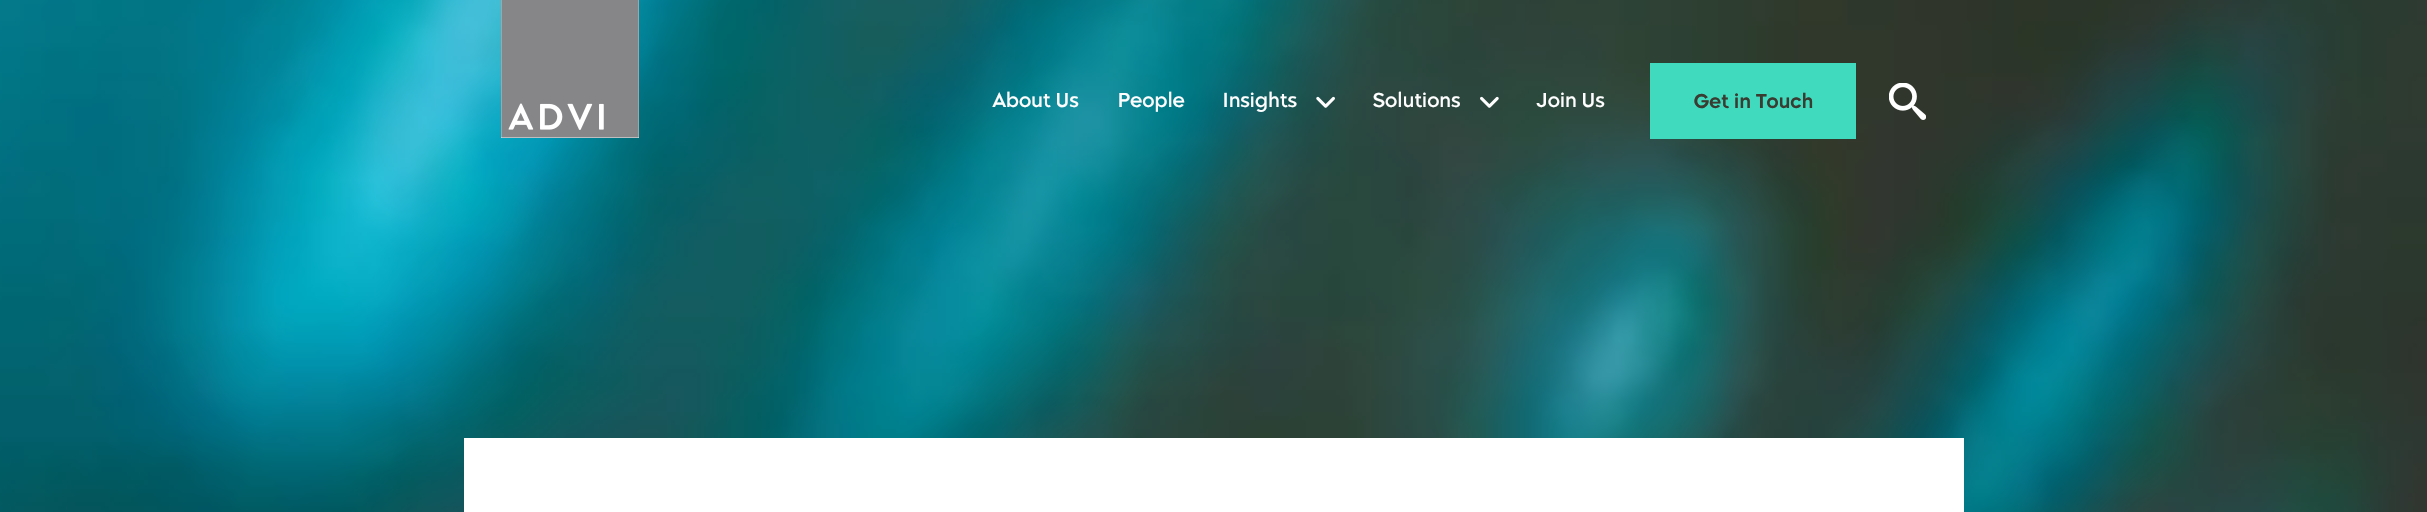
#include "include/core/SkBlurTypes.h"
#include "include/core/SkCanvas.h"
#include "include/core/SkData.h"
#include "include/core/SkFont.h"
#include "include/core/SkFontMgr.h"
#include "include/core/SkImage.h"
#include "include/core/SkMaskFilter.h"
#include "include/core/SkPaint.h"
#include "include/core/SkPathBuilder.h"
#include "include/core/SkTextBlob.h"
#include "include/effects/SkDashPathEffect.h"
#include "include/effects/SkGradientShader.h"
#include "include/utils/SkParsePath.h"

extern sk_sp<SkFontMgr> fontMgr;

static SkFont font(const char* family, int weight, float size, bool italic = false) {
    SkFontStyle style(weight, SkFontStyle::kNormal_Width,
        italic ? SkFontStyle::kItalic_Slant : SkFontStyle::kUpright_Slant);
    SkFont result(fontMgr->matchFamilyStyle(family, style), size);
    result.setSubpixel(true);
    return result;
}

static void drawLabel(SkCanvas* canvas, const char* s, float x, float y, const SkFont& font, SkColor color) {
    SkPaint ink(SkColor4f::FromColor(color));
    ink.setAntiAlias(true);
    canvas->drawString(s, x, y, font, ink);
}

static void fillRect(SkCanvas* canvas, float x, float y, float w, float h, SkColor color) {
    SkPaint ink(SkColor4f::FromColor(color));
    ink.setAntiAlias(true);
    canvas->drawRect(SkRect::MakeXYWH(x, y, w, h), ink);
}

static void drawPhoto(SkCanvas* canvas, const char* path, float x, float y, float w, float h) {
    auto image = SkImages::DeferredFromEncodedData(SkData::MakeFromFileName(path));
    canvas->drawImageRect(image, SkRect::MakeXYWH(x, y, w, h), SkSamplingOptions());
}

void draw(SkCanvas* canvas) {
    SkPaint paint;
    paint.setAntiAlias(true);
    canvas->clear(0xFFFFFFFF);
    drawPhoto(canvas, "assets/img1.png", 0, 0, 2427, 512);
    fillRect(canvas, 464, 438, 1500, 74, 0xFFFFFFFF);
    fillRect(canvas, 501, 0, 138, 138, 0xFFFFFFFF);
    drawPhoto(canvas, "assets/img2.png", 501, 0, 138, 138);
    SkFont font1 = font("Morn", 500, 20);
    drawLabel(canvas, "About Us", 993, 107, font1, 0xFFFFFFFF);
    drawLabel(canvas, "People", 1118, 107, font1, 0xFFFFFFFF);
    drawLabel(canvas, "Insights", 1223, 107, font1, 0xFFFFFFFF);
    drawPhoto(canvas, "assets/img3.png", 1316, 96, 19, 12);
    drawLabel(canvas, "Solutions", 1373, 107, font1, 0xFFFFFFFF);
    drawPhoto(canvas, "assets/img4.png", 1480, 96, 19, 12);
    drawLabel(canvas, "Join Us", 1537, 107, font1, 0xFFFFFFFF);
    fillRect(canvas, 1650, 63, 206, 76, 0xFF40DBBF);
    SkFont font2 = font("Morn", 600, 20);
    drawLabel(canvas, "Get in Touch", 1694, 108, font2, 0xFF3A3C32);
    drawPhoto(canvas, "assets/img5.png", 1889, 83, 37, 37);
}
